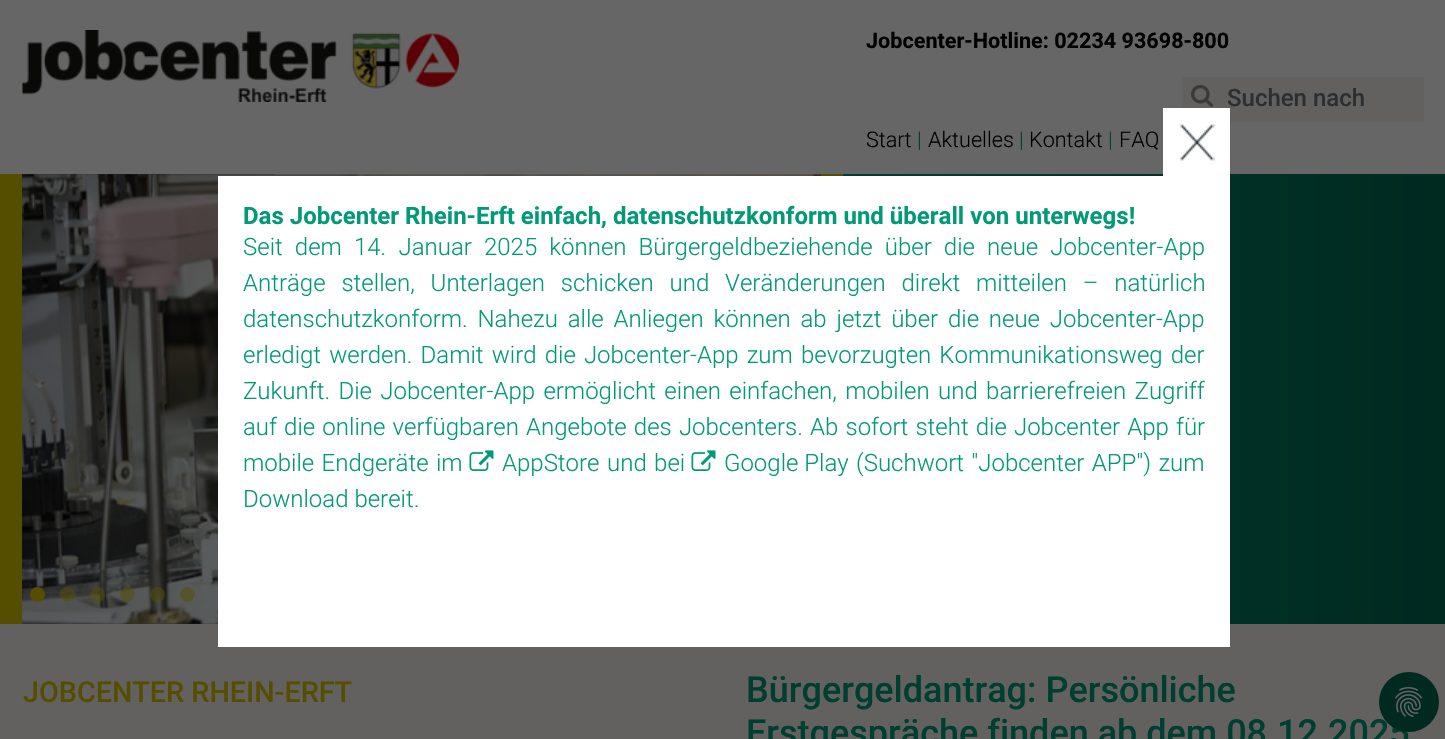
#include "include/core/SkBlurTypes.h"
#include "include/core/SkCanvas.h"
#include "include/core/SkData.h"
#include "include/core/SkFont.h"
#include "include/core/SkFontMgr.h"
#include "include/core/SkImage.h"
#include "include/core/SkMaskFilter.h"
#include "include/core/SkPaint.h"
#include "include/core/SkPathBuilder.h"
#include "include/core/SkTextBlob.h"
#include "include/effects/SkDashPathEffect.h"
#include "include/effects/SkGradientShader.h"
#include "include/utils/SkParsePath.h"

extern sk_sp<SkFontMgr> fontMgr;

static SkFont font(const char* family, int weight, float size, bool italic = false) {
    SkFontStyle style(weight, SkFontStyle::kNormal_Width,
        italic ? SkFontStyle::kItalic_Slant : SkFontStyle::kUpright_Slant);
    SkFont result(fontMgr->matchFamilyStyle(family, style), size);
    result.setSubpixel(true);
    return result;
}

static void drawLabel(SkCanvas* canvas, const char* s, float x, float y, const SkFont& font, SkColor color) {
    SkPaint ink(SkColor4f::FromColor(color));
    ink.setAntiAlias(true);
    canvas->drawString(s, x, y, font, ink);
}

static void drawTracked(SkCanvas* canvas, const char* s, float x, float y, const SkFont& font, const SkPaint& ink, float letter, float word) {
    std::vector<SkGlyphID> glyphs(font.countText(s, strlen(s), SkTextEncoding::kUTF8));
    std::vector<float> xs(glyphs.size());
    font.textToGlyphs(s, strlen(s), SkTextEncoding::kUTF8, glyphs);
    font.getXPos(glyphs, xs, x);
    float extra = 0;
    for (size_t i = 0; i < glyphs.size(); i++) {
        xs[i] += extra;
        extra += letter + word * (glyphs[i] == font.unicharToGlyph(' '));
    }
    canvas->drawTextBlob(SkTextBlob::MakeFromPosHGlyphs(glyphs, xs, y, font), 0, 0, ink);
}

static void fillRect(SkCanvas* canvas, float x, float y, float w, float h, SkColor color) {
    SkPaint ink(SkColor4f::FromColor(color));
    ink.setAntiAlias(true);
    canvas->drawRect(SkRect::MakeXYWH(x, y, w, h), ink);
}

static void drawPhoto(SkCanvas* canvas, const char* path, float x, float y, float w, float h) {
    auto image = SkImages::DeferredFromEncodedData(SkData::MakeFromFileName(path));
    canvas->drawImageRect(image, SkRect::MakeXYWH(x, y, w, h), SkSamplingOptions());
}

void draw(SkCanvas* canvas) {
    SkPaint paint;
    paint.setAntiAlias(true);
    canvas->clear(0xFF626160);
    fillRect(canvas, 0, 0, 1445, 174, 0xFF666666);
    drawPhoto(canvas, "assets/img1.png", 22, 30, 437, 72);
    SkFont font1 = font("Roboto", 700, 21.6f);
    drawLabel(canvas, "Jobcenter-Hotline: 02234 93698-800", 866, 48, font1, 0xFF000000);
    fillRect(canvas, 1182, 77, 242, 45, 0xFF626160);
    drawPhoto(canvas, "assets/img2.png", 1191, 84, 22, 23);
    SkFont font2 = font("Roboto", 500, 24);
    drawLabel(canvas, "Suchen nach", 1227, 106, font2, 0xFF2B2F32);
    SkFont font3 = font("Roboto", 300, 21.6f);
    drawLabel(canvas, "Start", 866, 147, font3, 0xFF000000);
    drawLabel(canvas, "|", 917, 147, font3, 0xFF003E30);
    drawLabel(canvas, "Aktuelles", 928, 147, font3, 0xFF000000);
    drawLabel(canvas, "|", 1019, 147, font3, 0xFF003E30);
    drawLabel(canvas, "Kontakt", 1029, 147, font3, 0xFF000000);
    drawLabel(canvas, "|", 1108, 147, font3, 0xFF003E30);
    drawLabel(canvas, "FAQ", 1119, 147, font3, 0xFF000000);
    fillRect(canvas, 821, 174, 22, 2, 0xFF554D00);
    fillRect(canvas, 0, 174, 23, 450, 0xFF554D00);
    drawPhoto(canvas, "assets/img3.png", 22, 174, 253, 450);
    drawPhoto(canvas, "assets/img4.png", 22, 174, 799, 450);
    paint.setColor(0xFF554D00);
    canvas->drawCircle(37.5f, 594.5f, 7.5f, paint);
    paint.setColor(0x80554D00);
    canvas->drawCircle(67.5f, 594.5f, 7.5f, paint);
    canvas->drawCircle(97.5f, 594.5f, 7.5f, paint);
    canvas->drawCircle(127.5f, 594.5f, 7.5f, paint);
    canvas->drawCircle(157.5f, 594.5f, 7.5f, paint);
    canvas->drawCircle(187.5f, 594.5f, 7.5f, paint);
    {
        const SkColor colors[] = {0xFF003E30, 0xFF002920};
        const float stops[] = {0, 1};
        const SkPoint ends[] = {{843, 399}, {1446, 399}};
        paint.setShader(SkGradientShader::MakeLinear(ends, colors, stops, 2, SkTileMode::kClamp));
        paint.setAlpha(255);
    }
    canvas->drawRect(SkRect::MakeXYWH(843, 174, 602, 450), paint);
    SkFont font4 = font("Roboto", 500, 28.75f);
    drawLabel(canvas, "JOBCENTER RHEIN-ERFT", 23, 702, font4, 0xFF554D00);
    SkFont font5 = font("Roboto", 500, 36);
    drawLabel(canvas, "Bürgergeldantrag: Persönliche", 746, 702, font5, 0xFF003E30);
    drawLabel(canvas, "Erstgespräche finden ab dem 08.12.2025", 746, 745, font5, 0xFF003E30);
    fillRect(canvas, 1163, 108, 67, 68, 0xFFFFFFFF);
    drawPhoto(canvas, "assets/img5.png", 1179, 124, 37, 37);
    fillRect(canvas, 218, 176, 1012, 471, 0xFFFFFFFF);
    SkFont font6 = font("Roboto", 700, 24);
    drawLabel(canvas, "Das Jobcenter Rhein-Erft einfach, datenschutzkonform und überall von unterwegs!", 243, 224, font6, 0xFF019A77);
    SkFont font7 = font("Roboto", 300, 24);
    paint.setShader(nullptr);
    paint.setColor(0xFF019A77);
    drawTracked(canvas, "Seit dem 14. Januar 2025 können Bürgergeldbeziehende über die neue Jobcenter-App", 243, 255, font7, paint, 0, 6.25f);
    drawTracked(canvas, "Anträge stellen, Unterlagen schicken und Veränderungen direkt mitteilen – natürlich", 243, 291, font7, paint, 0, 10);
    drawTracked(canvas, "datenschutzkonform. Nahezu alle Anliegen können ab jetzt über die neue Jobcenter-App", 243, 327, font7, paint, 0, 3.9f);
    drawTracked(canvas, "erledigt werden. Damit wird die Jobcenter-App zum bevorzugten Kommunikationsweg der", 243, 363, font7, paint, 0, 2.25f);
    drawTracked(canvas, "Zukunft. Die Jobcenter-App ermöglicht einen einfachen, mobilen und barrierefreien Zugriff", 243, 399, font7, paint, 0, 2.5f);
    drawTracked(canvas, "auf die online verfügbaren Angebote des Jobcenters. Ab sofort steht die Jobcenter App für", 243, 435, font7, paint, 0, 1.25f);
    drawTracked(canvas, "mobile Endgeräte im", 243, 471, font7, paint, 0, 1.5f);
    drawPhoto(canvas, "assets/img6.png", 469, 450, 25, 21);
    drawLabel(canvas, "AppStore", 502, 471, font7, 0xFF019A77);
    drawTracked(canvas, "und bei", 607, 471, font7, paint, 0, 1.5f);
    drawPhoto(canvas, "assets/img6.png", 691, 450, 25, 21);
    drawLabel(canvas, "Google Play", 724, 471, font7, 0xFF019A77);
    drawTracked(canvas, "(Suchwort \"Jobcenter APP\") zum", 856, 471, font7, paint, 0, 1.5f);
    drawLabel(canvas, "Download bereit.", 243, 507, font7, 0xFF019A77);
    paint.setColor(0xFF002920);
    canvas->drawCircle(1409, 702, 30, paint);
    drawPhoto(canvas, "assets/img7.png", 1395, 687, 27, 30);
}
